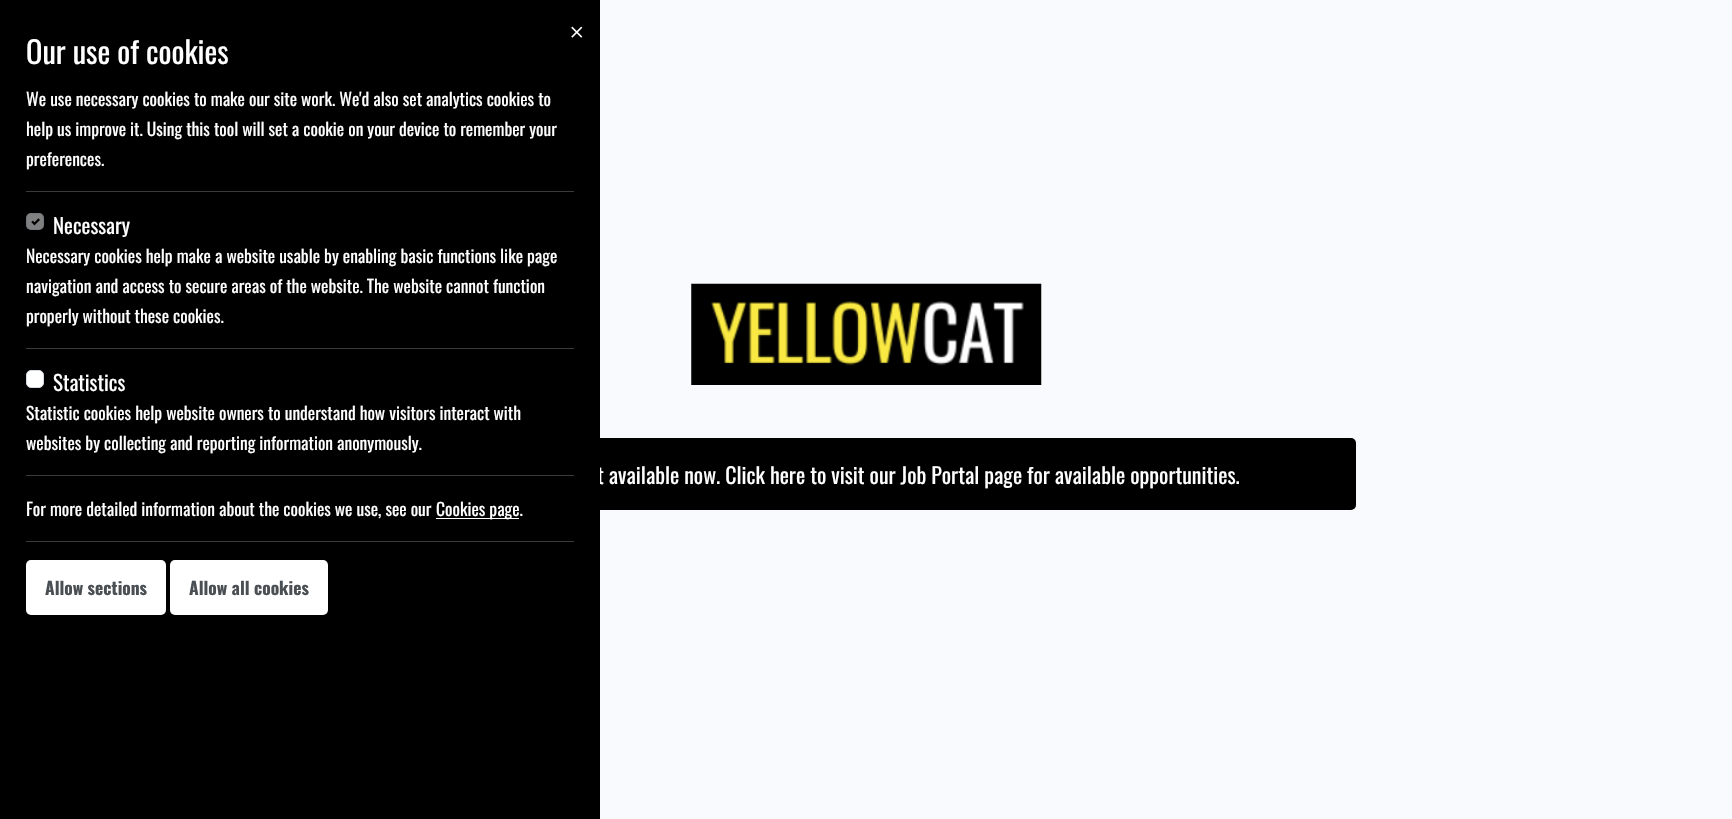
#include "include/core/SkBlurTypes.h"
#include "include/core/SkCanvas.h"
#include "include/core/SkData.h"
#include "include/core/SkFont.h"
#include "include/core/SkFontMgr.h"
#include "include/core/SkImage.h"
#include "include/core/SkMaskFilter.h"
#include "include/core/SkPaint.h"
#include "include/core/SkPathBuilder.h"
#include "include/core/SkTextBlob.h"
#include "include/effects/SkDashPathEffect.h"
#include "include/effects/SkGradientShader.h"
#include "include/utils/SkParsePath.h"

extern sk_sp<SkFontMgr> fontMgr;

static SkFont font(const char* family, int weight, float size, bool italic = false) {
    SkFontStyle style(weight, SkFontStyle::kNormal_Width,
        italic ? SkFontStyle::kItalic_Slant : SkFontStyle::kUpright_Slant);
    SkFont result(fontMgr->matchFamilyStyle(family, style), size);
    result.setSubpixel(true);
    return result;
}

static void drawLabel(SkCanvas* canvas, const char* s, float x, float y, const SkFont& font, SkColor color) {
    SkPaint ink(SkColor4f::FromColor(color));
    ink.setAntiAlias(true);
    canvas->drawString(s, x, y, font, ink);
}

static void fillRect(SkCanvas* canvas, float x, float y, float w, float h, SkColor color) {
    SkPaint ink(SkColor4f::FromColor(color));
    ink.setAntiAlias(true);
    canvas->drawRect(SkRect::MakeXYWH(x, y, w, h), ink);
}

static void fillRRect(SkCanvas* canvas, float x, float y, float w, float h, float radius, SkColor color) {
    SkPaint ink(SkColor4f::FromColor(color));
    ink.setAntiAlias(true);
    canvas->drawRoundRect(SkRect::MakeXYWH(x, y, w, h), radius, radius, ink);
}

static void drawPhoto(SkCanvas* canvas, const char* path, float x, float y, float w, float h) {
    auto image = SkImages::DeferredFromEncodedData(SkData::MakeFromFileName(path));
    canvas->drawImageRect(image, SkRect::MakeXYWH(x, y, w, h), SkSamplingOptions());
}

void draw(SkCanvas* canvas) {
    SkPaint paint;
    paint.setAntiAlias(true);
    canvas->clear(0xFFF8FAFD);
    fillRRect(canvas, 378, 438, 978, 72, 5, 0xFF000000);
    SkFont font1 = font("Oswald", 400, 21.9f);
    drawLabel(canvas, "t available now. Click here to visit our Job Portal page for available opportunities.", 597, 484, font1, 0xFFFFFFFF);
    fillRect(canvas, 0, 0, 600, 819, 0xFF000000);
    drawPhoto(canvas, "assets/img1.png", 571, 26, 12, 12);
    SkFont font2 = font("Oswald", 400, 30.5f);
    drawLabel(canvas, "Our use of cookies", 26, 64, font2, 0xFFFFFFFF);
    SkFont font3 = font("Oswald", 400, 17.5f);
    drawLabel(canvas, "We use necessary cookies to make our site work. We'd also set analytics cookies to", 26, 106, font3, 0xFFFFFFFF);
    drawLabel(canvas, "help us improve it. Using this tool will set a cookie on your device to remember your", 26, 136, font3, 0xFFFFFFFF);
    drawLabel(canvas, "preferences.", 26, 166, font3, 0xFFFFFFFF);
    fillRect(canvas, 26, 191, 548, 1, 0xFF3A3B3D);
    fillRRect(canvas, 26, 213, 18, 17, 5, 0xFF808080);
    paint.setStroke(true);
    paint.setStrokeWidth(1);
    paint.setColor(0x1A083F7A);
    canvas->drawRoundRect(SkRect::MakeXYWH(26.5f, 213.5f, 17, 16), 4.5f, 4.5f, paint);
    SkFont font4 = font("Oswald", 400, 21);
    drawLabel(canvas, "Necessary", 53, 234, font4, 0xFFFFFFFF);
    drawPhoto(canvas, "assets/img2.png", 31, 218, 9, 8);
    drawLabel(canvas, "Necessary cookies help make a website usable by enabling basic functions like page", 26, 263, font3, 0xFFFFFFFF);
    drawLabel(canvas, "navigation and access to secure areas of the website. The website cannot function", 26, 293, font3, 0xFFFFFFFF);
    drawLabel(canvas, "properly without these cookies.", 26, 323, font3, 0xFFFFFFFF);
    fillRect(canvas, 26, 348, 548, 1, 0xFF3A3B3D);
    paint.setStroke(false);
    paint.setColor(0xFFFFFFFF);
    canvas->drawRoundRect(SkRect::MakeXYWH(26.5f, 370.5f, 17, 17), 4.5f, 4.5f, paint);
    paint.setStroke(true);
    paint.setColor(0xFFD5DAE2);
    canvas->drawRoundRect(SkRect::MakeXYWH(26.5f, 370.5f, 17, 17), 4.5f, 4.5f, paint);
    drawLabel(canvas, "Statistics", 53, 391, font4, 0xFFFFFFFF);
    drawLabel(canvas, "Statistic cookies help website owners to understand how visitors interact with", 26, 420, font3, 0xFFFFFFFF);
    drawLabel(canvas, "websites by collecting and reporting information anonymously.", 26, 450, font3, 0xFFFFFFFF);
    fillRect(canvas, 26, 475, 548, 1, 0xFF3A3B3D);
    drawLabel(canvas, "For more detailed information about the cookies we use, see our", 26, 516, font3, 0xFFFFFFFF);
    fillRect(canvas, 436, 518, 83, 1, 0xFFFFFFFF);
    drawLabel(canvas, "Cookies page.", 436, 516, font3, 0xFFFFFFFF);
    fillRect(canvas, 26, 541, 548, 1, 0xFF3A3B3D);
    fillRRect(canvas, 26, 560, 140, 55, 5, 0xFFFFFFFF);
    SkFont font5 = font("Oswald", 700, 17.5f);
    drawLabel(canvas, "Allow sections", 45, 595, font5, 0xFF4A4F54);
    fillRRect(canvas, 170, 560, 158, 55, 5, 0xFFFFFFFF);
    drawLabel(canvas, "Allow all cookies", 189, 595, font5, 0xFF4A4F54);
    drawPhoto(canvas, "assets/img3.png", 691, 283, 351, 102);
}
